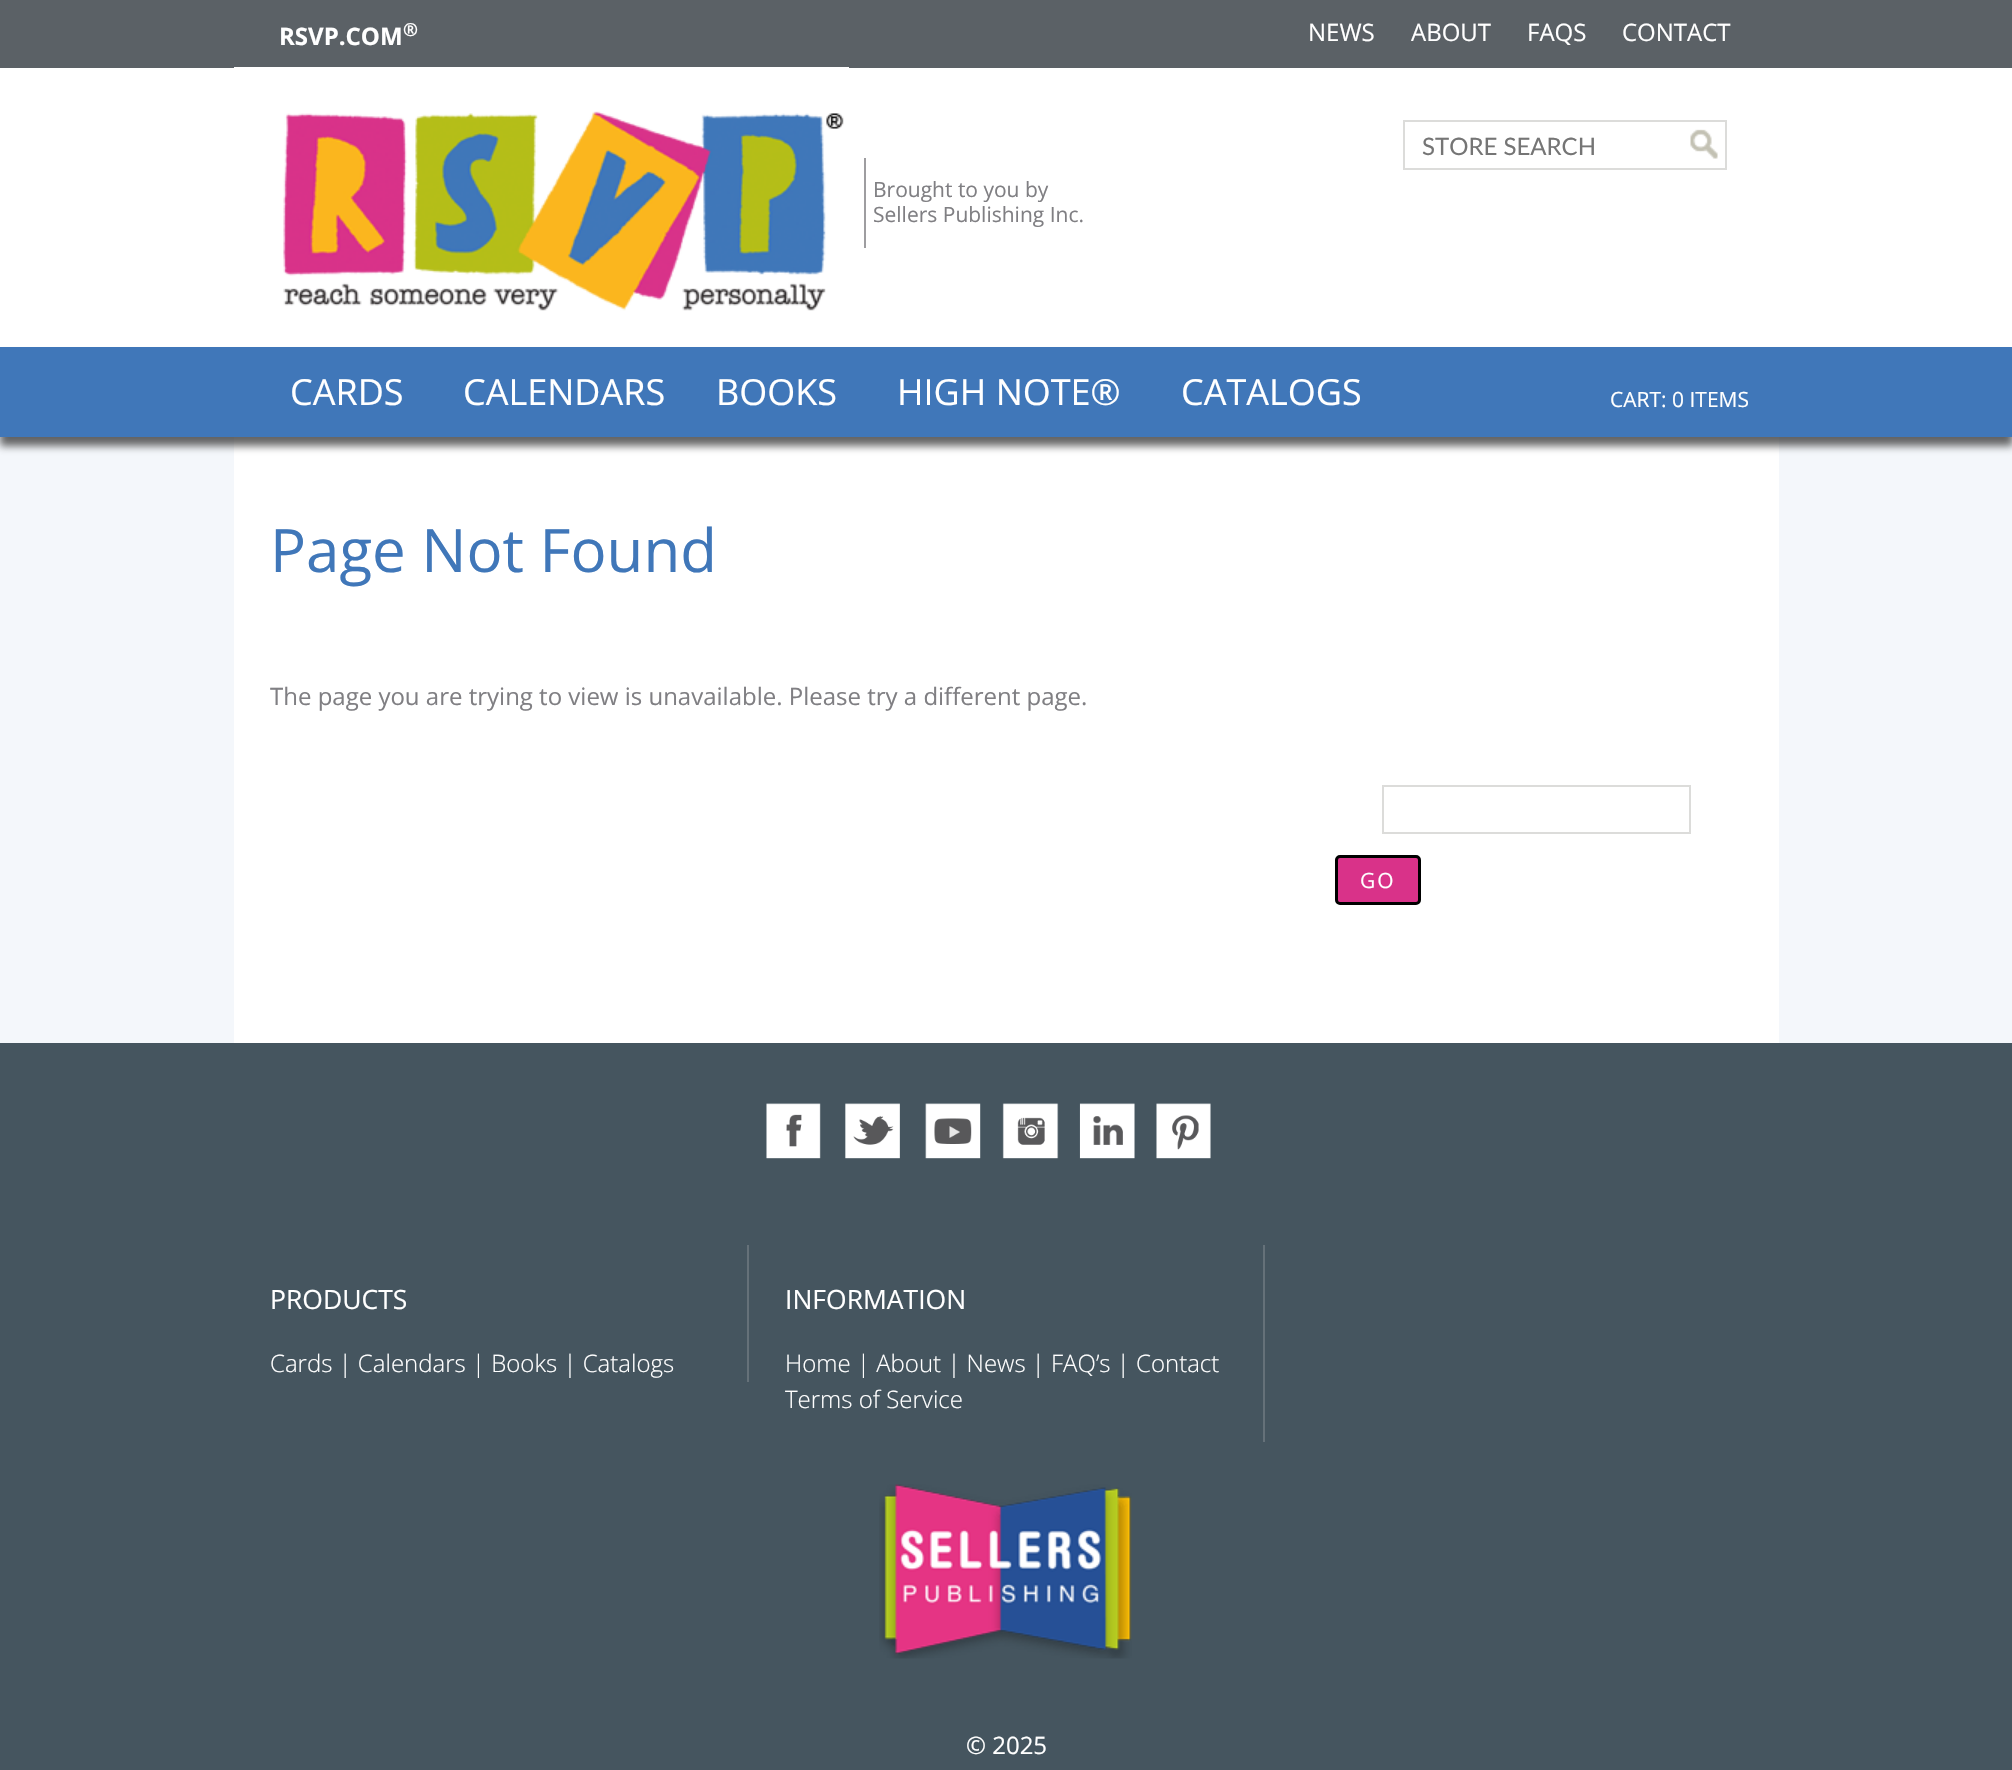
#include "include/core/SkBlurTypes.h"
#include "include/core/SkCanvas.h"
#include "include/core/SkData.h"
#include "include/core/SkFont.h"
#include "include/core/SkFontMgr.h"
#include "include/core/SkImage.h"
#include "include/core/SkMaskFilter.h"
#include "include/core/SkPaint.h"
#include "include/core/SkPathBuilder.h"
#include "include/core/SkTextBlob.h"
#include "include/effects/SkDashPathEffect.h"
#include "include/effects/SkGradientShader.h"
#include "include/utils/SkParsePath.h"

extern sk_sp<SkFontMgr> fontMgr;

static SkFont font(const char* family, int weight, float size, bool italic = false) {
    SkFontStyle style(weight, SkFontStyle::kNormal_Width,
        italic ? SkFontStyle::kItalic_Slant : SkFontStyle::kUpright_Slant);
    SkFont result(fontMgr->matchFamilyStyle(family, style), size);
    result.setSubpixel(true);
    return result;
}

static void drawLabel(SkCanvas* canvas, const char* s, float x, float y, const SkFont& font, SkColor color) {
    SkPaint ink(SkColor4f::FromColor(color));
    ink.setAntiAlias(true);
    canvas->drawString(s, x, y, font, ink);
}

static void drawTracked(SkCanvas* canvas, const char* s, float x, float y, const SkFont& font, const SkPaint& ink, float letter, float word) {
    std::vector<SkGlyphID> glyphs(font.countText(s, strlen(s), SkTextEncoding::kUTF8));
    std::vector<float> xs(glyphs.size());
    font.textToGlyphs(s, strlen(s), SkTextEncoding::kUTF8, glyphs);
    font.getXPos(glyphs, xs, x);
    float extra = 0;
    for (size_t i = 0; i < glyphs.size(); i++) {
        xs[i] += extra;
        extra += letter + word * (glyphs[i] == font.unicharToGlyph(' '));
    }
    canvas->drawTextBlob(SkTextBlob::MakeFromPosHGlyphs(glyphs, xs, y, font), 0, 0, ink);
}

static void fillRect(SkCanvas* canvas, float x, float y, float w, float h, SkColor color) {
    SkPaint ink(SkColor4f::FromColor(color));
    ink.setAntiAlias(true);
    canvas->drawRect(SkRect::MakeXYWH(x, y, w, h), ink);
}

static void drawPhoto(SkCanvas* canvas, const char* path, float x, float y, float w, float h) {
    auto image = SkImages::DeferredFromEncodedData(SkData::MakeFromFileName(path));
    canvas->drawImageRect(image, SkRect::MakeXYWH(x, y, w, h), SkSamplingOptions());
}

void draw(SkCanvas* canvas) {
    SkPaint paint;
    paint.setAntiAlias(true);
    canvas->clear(0xFFF4F7FB);
    fillRect(canvas, 0, 0, 2012, 68, 0xFF5B6166);
    SkFont font1 = font("Open Sans", 700, 24);
    drawLabel(canvas, "RSVP.COM", 279, 45, font1, 0xFFFFFFFF);
    SkFont font2 = font("Open Sans", 700, 18);
    drawLabel(canvas, "®", 403, 36, font2, 0xFFFFFFFF);
    SkFont font3 = font("Open Sans", 400, 24);
    drawLabel(canvas, "NEWS", 1308, 41, font3, 0xFFFFFFFF);
    drawLabel(canvas, "ABOUT", 1411, 41, font3, 0xFFFFFFFF);
    drawLabel(canvas, "FAQS", 1527, 41, font3, 0xFFFFFFFF);
    drawLabel(canvas, "CONTACT", 1622, 41, font3, 0xFFFFFFFF);
    fillRect(canvas, 0, 68, 2012, 279, 0xFFFFFFFF);
    drawPhoto(canvas, "assets/img1.png", 234, 67, 615, 244);
    paint.setStroke(true);
    paint.setStrokeWidth(2);
    paint.setColor(0xFFDCDCDA);
    canvas->drawRect(SkRect::MakeXYWH(1404, 121, 322, 48), paint);
    SkFont font4 = font("Lato", 400, 24);
    drawLabel(canvas, "STORE SEARCH", 1422, 155, font4, 0xFF757575);
    drawPhoto(canvas, "assets/img2.png", 1690, 129, 28, 30);
    fillRect(canvas, 864, 158, 2, 90, 0xFF9E9DA0);
    SkFont font5 = font("Open Sans", 400, 21);
    drawLabel(canvas, "Brought to you by", 873, 197, font5, 0xFF807F83);
    drawLabel(canvas, "Sellers Publishing Inc.", 873, 222, font5, 0xFF807F83);
    fillRect(canvas, 234, 437, 1545, 606, 0xFFFFFFFF);
    paint.setStroke(false);
    paint.setColor(0xBF323232);
    paint.setMaskFilter(SkMaskFilter::MakeBlur(kNormal_SkBlurStyle, 4));
    canvas->drawRect(SkRect::MakeXYWH(0, 356, 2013, 90), paint);
    paint.setMaskFilter(nullptr);
    fillRect(canvas, 0, 347, 2012, 90, 0xFF4077B9);
    SkFont font6 = font("Open Sans", 400, 36);
    drawLabel(canvas, "CARDS", 290, 405, font6, 0xFFFFFFFF);
    drawLabel(canvas, "CALENDARS", 463, 405, font6, 0xFFFFFFFF);
    drawLabel(canvas, "BOOKS", 716, 405, font6, 0xFFFFFFFF);
    drawLabel(canvas, "HIGH NOTE®", 897, 405, font6, 0xFFFFFFFF);
    drawLabel(canvas, "CATALOGS", 1181, 405, font6, 0xFFFFFFFF);
    drawLabel(canvas, "CART: 0 ITEMS", 1610, 407, font5, 0xFFFFFFFF);
    SkFont font7 = font("Open Sans", 400, 60);
    drawLabel(canvas, "Page Not Found", 270, 572, font7, 0xFF4077B9);
    drawLabel(canvas, "The page you are trying to view is unavailable. Please try a different page.", 270, 705, font3, 0xFF807F83);
    paint.setStroke(true);
    paint.setColor(0xFFDCDCDA);
    canvas->drawRect(SkRect::MakeXYWH(1383, 786, 307, 47), paint);
    paint.setStroke(false);
    paint.setColor(0xFFD93289);
    canvas->drawRoundRect(SkRect::MakeXYWH(1336.5f, 856.5f, 83, 47), 3.5f, 3.5f, paint);
    paint.setStroke(true);
    paint.setStrokeWidth(3);
    paint.setColor(0xFF000000);
    canvas->drawRoundRect(SkRect::MakeXYWH(1336.5f, 856.5f, 83, 47), 3.5f, 3.5f, paint);
    paint.setStroke(false);
    paint.setColor(0xFFFFFFFF);
    drawTracked(canvas, "GO", 1360, 888, font5, paint, 2, 0);
    fillRect(canvas, 0, 1043, 2012, 727, 0xFF45555F);
    drawPhoto(canvas, "assets/img3.png", 879, 1484, 253, 175);
    drawPhoto(canvas, "assets/img4.png", 766, 1103, 55, 56);
    drawPhoto(canvas, "assets/img5.png", 845, 1103, 55, 56);
    drawPhoto(canvas, "assets/img6.png", 925, 1103, 56, 56);
    drawPhoto(canvas, "assets/img7.png", 1002, 1103, 57, 56);
    drawPhoto(canvas, "assets/img8.png", 1079, 1103, 56, 56);
    drawPhoto(canvas, "assets/img9.png", 1156, 1103, 55, 56);
    fillRect(canvas, 747, 1245, 2, 137, 0xFF657179);
    SkFont font8 = font("Open Sans", 400, 26.5f);
    drawLabel(canvas, "PRODUCTS", 270, 1309, font8, 0xFFFFFFFF);
    SkFont font9 = font("Open Sans", 300, 24);
    drawLabel(canvas, "Cards | Calendars | Books | Catalogs", 270, 1372, font9, 0xFFFFFFFF);
    fillRect(canvas, 1263, 1245, 2, 197, 0xFF657179);
    drawLabel(canvas, "INFORMATION", 785, 1309, font8, 0xFFFFFFFF);
    drawLabel(canvas, "Home | About | News | FAQ’s | Contact", 785, 1372, font9, 0xFFFFFFFF);
    drawLabel(canvas, "Terms of Service", 785, 1408, font9, 0xFFFFFFFF);
    drawLabel(canvas, "© 2025", 966, 1754, font3, 0xFFFFFFFF);
}
